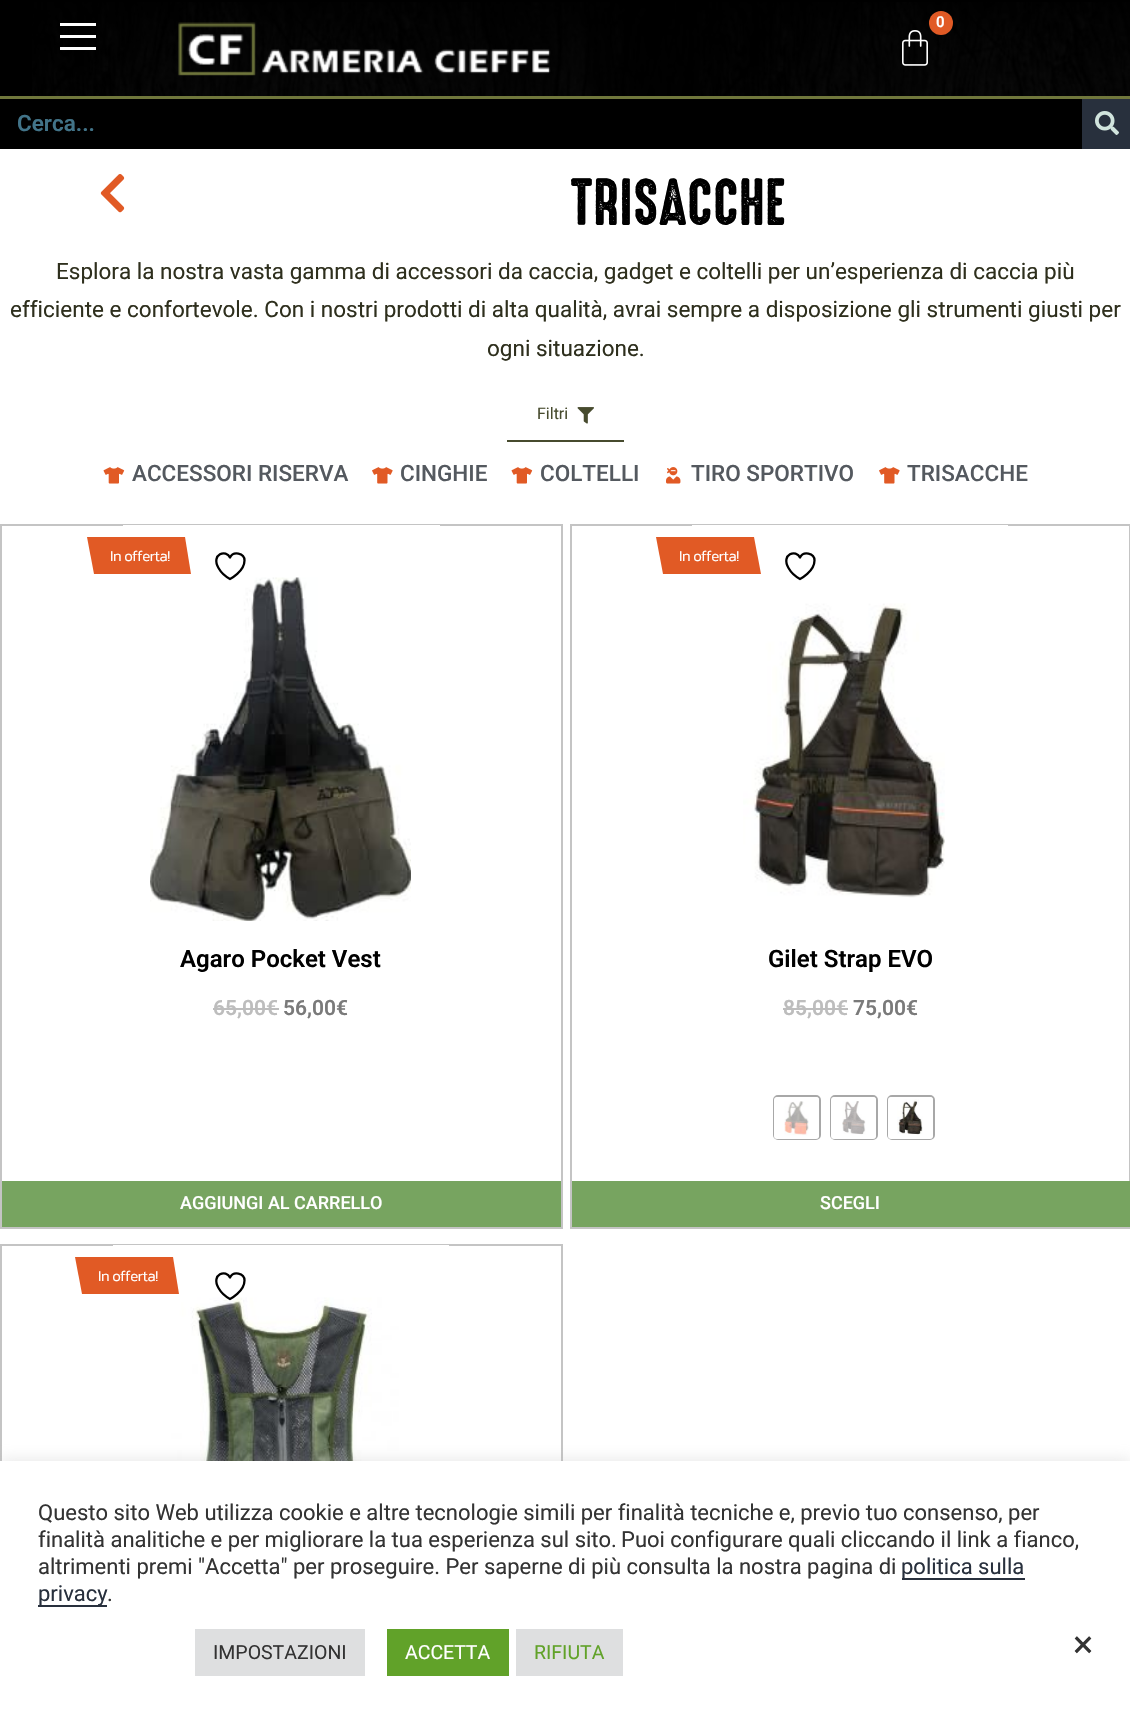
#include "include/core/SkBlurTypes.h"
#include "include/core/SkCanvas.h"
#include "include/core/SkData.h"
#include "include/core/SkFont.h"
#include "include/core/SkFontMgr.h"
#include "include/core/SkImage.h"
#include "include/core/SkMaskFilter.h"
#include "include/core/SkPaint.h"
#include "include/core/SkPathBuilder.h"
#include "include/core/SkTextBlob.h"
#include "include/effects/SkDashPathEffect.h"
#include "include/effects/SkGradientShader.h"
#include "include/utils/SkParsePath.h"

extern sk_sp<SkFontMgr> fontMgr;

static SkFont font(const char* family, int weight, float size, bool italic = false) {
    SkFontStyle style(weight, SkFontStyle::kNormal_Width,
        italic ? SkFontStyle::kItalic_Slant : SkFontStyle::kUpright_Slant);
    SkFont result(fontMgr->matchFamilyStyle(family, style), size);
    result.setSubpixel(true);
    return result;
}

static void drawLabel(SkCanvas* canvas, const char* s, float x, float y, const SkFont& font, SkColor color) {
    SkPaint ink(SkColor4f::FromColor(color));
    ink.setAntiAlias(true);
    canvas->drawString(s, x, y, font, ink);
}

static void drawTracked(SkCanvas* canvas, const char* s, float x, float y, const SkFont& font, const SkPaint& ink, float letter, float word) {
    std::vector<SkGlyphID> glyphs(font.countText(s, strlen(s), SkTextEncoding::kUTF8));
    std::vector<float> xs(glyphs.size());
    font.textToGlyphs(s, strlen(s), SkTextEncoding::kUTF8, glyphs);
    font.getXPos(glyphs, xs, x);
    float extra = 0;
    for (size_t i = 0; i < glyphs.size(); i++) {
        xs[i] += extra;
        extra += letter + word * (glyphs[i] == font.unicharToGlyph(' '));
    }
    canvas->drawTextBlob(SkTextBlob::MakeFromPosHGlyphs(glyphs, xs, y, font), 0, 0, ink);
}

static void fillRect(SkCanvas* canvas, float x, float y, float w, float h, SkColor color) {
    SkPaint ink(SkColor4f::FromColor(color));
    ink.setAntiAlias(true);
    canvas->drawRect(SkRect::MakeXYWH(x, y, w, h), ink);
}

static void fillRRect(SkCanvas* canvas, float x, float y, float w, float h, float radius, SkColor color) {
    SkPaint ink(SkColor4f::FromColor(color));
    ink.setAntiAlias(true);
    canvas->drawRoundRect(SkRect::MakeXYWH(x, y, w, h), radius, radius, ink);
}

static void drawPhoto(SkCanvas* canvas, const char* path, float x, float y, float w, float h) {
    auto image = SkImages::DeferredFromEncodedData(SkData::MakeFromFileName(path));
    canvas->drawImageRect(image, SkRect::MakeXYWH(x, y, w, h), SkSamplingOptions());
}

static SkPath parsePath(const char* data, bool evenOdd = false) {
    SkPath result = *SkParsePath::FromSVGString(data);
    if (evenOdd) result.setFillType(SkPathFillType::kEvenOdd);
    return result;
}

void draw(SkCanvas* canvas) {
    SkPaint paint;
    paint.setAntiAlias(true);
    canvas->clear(0xFFFFFFFF);
    fillRect(canvas, 0, 0, 1130, 96, 0xFF000000);
    fillRect(canvas, 0, 96, 1130, 3, 0xFF70773C);
    drawPhoto(canvas, "assets/img1.png", 32, 2, 1098, 94);
    fillRect(canvas, 60, 23, 36, 3, 0xFFFFFFFF);
    fillRect(canvas, 60, 35, 36, 3, 0xFFFFFFFF);
    fillRect(canvas, 60, 47, 36, 3, 0xFFFFFFFF);
    drawPhoto(canvas, "assets/img2.png", 178, 22, 373, 54);
    paint.setColor(0xFFE15A25);
    canvas->drawCircle(941, 23, 12, paint);
    SkFont font1 = font("Roboto", 600, 15);
    drawLabel(canvas, "0", 936, 27, font1, 0xFFFFFFFF);
    drawPhoto(canvas, "assets/img3.png", 902, 30, 26, 36);
    fillRect(canvas, 0, 99, 1082, 50, 0xFF000000);
    SkFont font2 = font("Roboto", 600, 22.5f);
    drawLabel(canvas, "Cerca...", 17, 131, font2, 0xFF427489);
    fillRect(canvas, 1082, 99, 48, 50, 0xFF28303D);
    drawPhoto(canvas, "assets/img4.png", 1095, 111, 24, 24);
    drawPhoto(canvas, "assets/img5.png", 100, 174, 25, 39);
    SkFont font3 = font("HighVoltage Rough", 400, 60);
    drawLabel(canvas, "TRISACCHE", 571, 225, font3, 0xFF000000);
    SkFont font4 = font("Roboto", 400, 22.5f);
    drawLabel(canvas, "Esplora la nostra vasta gamma di accessori da caccia, gadget e coltelli per un’esperienza di caccia più", 56, 279, font4, 0xFF2E2F1D);
    drawLabel(canvas, "efficiente e confortevole. Con i nostri prodotti di alta qualità, avrai sempre a disposizione gli strumenti giusti per", 10, 317, font4, 0xFF2E2F1D);
    drawLabel(canvas, "ogni situazione.", 487, 356, font4, 0xFF2E2F1D);
    fillRect(canvas, 507, 440, 117, 2, 0xFF474B2E);
    SkFont font5 = font("Roboto", 400, 16);
    drawLabel(canvas, "Filtri", 537, 419, font5, 0xFF474B2E);
    drawPhoto(canvas, "assets/img6.png", 577, 407, 17, 17);
    drawPhoto(canvas, "assets/img7.png", 103, 467, 22, 17);
    SkFont font6 = font("Roboto", 500, 22.5f);
    drawLabel(canvas, "ACCESSORI RISERVA", 132, 481, font6, 0xFF54595F);
    drawPhoto(canvas, "assets/img8.png", 372, 467, 21, 17);
    drawLabel(canvas, "CINGHIE", 400, 481, font6, 0xFF54595F);
    drawPhoto(canvas, "assets/img7.png", 511, 467, 22, 17);
    drawLabel(canvas, "COLTELLI", 540, 481, font6, 0xFF54595F);
    drawPhoto(canvas, "assets/img9.png", 666, 467, 15, 17);
    drawLabel(canvas, "TIRO SPORTIVO", 691, 481, font6, 0xFF54595F);
    drawPhoto(canvas, "assets/img8.png", 879, 467, 21, 17);
    drawLabel(canvas, "TRISACCHE", 907, 481, font6, 0xFF54595F);
    paint.setStroke(true);
    paint.setStrokeWidth(2);
    paint.setColor(0xFFC4C4C4);
    canvas->drawRect(SkRect::MakeXYWH(1, 525, 561, 703), paint);
    fillRect(canvas, 123, 525, 317, 1, 0xFFFFFFFF);
    paint.setStroke(false);
    paint.setColor(0xFFE15A25);
    canvas->drawPath(parsePath("M87 537H185L191 574H94Z"), paint);
    SkFont font7 = font("Kanit", 300, 15);
    paint.setColor(0xFFFFFFFF);
    drawTracked(canvas, "In offerta!", 110, 561, font7, paint, -0.4f, 0);
    drawPhoto(canvas, "assets/img10.png", 150, 577, 261, 344);
    SkFont font8 = font("Roboto", 600, 24);
    drawLabel(canvas, "Agaro Pocket Vest", 180, 967, font8, 0xFF000000);
    SkFont font9 = font("Roboto", 600, 21);
    drawLabel(canvas, "65,00€", 213, 1015, font9, 0xFFBDBDBD);
    fillRect(canvas, 213, 1008, 66, 2, 0xFFBDBDBD);
    drawLabel(canvas, "56,00€", 283, 1015, font9, 0xFF7A7A7A);
    paint.setStroke(true);
    paint.setStrokeWidth(2.3f);
    paint.setStrokeCap(SkPaint::kRound_Cap);
    paint.setStrokeJoin(SkPaint::kRound_Join);
    paint.setColor(0xFF000000);
    canvas->drawPath(parsePath("M244.5 560.5C244.5 552.5 233 551 230 557.5C226.5 549 210.5 554 218.5 568C221 572.5 225.5 576.5 230 579C230 579 244.5 571.5 244.5 560.5Z"), paint);
    fillRect(canvas, 2, 1181, 559, 46, 0xFF77A460);
    SkFont font10 = font("Roboto", 500, 18);
    drawLabel(canvas, "AGGIUNGI AL CARRELLO", 180, 1209, font10, 0xFFFFFFFF);
    paint.setStrokeWidth(2);
    paint.setStrokeCap(SkPaint::kButt_Cap);
    paint.setStrokeJoin(SkPaint::kMiter_Join);
    paint.setColor(0xFFC4C4C4);
    canvas->drawRect(SkRect::MakeXYWH(571, 525, 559, 703), paint);
    fillRect(canvas, 692, 525, 316, 1, 0xFFFFFFFF);
    paint.setStroke(false);
    paint.setColor(0xFFE15A25);
    canvas->drawPath(parsePath("M656 537H754L761 574H663Z"), paint);
    paint.setColor(0xFFFFFFFF);
    drawTracked(canvas, "In offerta!", 679, 561, font7, paint, -0.4f, 0);
    drawPhoto(canvas, "assets/img11.png", 743, 603, 202, 295);
    drawLabel(canvas, "Gilet Strap EVO", 768, 967, font8, 0xFF000000);
    drawLabel(canvas, "85,00€", 783, 1015, font9, 0xFFBDBDBD);
    fillRect(canvas, 783, 1008, 65, 2, 0xFFBDBDBD);
    drawLabel(canvas, "75,00€", 853, 1015, font9, 0xFF7A7A7A);
    paint.setStroke(true);
    paint.setStrokeWidth(2.3f);
    paint.setStrokeCap(SkPaint::kRound_Cap);
    paint.setStrokeJoin(SkPaint::kRound_Join);
    paint.setColor(0xFF000000);
    canvas->drawPath(parsePath("M814.5 560.5C814.5 552.5 803 551 800 557.5C796.5 549 780.5 554 788.5 568C791 572.5 795.5 576.5 800 579C800 579 814.5 571.5 814.5 560.5Z"), paint);
    paint.setStrokeWidth(2);
    paint.setStrokeCap(SkPaint::kButt_Cap);
    paint.setStrokeJoin(SkPaint::kMiter_Join);
    paint.setColor(0xFFA8A8A8);
    canvas->drawRoundRect(SkRect::MakeXYWH(774, 1096, 46, 43), 4, 4, paint);
    fillRRect(canvas, 774, 1097, 45, 42, 3, 0xFFFFFFFF);
    drawPhoto(canvas, "assets/img12.png", 784, 1101, 25, 35);
    canvas->drawRoundRect(SkRect::MakeXYWH(831, 1096, 46, 43), 4, 4, paint);
    fillRRect(canvas, 831, 1097, 45, 42, 3, 0xFFFFFFFF);
    drawPhoto(canvas, "assets/img13.png", 842, 1101, 24, 34);
    canvas->drawRoundRect(SkRect::MakeXYWH(888, 1096, 46, 43), 4, 4, paint);
    fillRRect(canvas, 888, 1097, 45, 42, 3, 0xFFFFFFFF);
    drawPhoto(canvas, "assets/img14.png", 897, 1099, 26, 36);
    fillRect(canvas, 572, 1181, 558, 46, 0xFF77A460);
    drawLabel(canvas, "SCEGLI", 820, 1209, font10, 0xFFFFFFFF);
    paint.setColor(0xFFC4C4C4);
    canvas->drawRect(SkRect::MakeXYWH(1, 1245, 561, 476), paint);
    fillRect(canvas, 113, 1245, 336, 1, 0xFFFFFFFF);
    paint.setStroke(false);
    paint.setColor(0xFFE15A25);
    canvas->drawPath(parsePath("M75 1257H173L179 1294H82Z"), paint);
    paint.setColor(0xFFFFFFFF);
    drawTracked(canvas, "In offerta!", 98, 1281, font7, paint, -0.4f, 0);
    drawPhoto(canvas, "assets/img15.png", 162, 1297, 237, 164);
    paint.setStroke(true);
    paint.setStrokeWidth(2.3f);
    paint.setStrokeCap(SkPaint::kRound_Cap);
    paint.setStrokeJoin(SkPaint::kRound_Join);
    paint.setColor(0xFF000000);
    canvas->drawPath(parsePath("M244.5 1280.5C244.5 1272.5 233 1271 230 1277.5C226.5 1269 210.5 1274 218.5 1288C221 1292.5 225.5 1296.5 230 1299C230 1299 244.5 1291.5 244.5 1280.5Z"), paint);
    paint.setStroke(false);
    paint.setColor(0x4DACABAB);
    paint.setMaskFilter(SkMaskFilter::MakeBlur(kNormal_SkBlurStyle, 7.5f));
    canvas->drawRect(SkRect::MakeXYWH(0, 1460, 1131, 259), paint);
    paint.setMaskFilter(nullptr);
    fillRect(canvas, 0, 1461, 1130, 259, 0xFFFFFFFF);
    SkFont font11 = font("Roboto", 400, 22);
    drawLabel(canvas, "Questo sito Web utilizza cookie e altre tecnologie simili per finalità tecniche e, previo tuo consenso, per", 38, 1520, font11, 0xFF333333);
    drawLabel(canvas, "finalità analitiche e per migliorare la tua esperienza sul sito.", 38, 1547, font11, 0xFF333333);
    drawLabel(canvas, "Puoi configurare quali cliccando il link a fianco,", 621, 1547, font11, 0xFF333333);
    drawLabel(canvas, "altrimenti premi \"Accetta\" per proseguire. Per saperne di più consulta la nostra pagina di", 38, 1574, font11, 0xFF333333);
    fillRect(canvas, 902, 1578, 123, 2, 0xFF28303D);
    drawLabel(canvas, "politica sulla", 901, 1574, font11, 0xFF28303D);
    fillRect(canvas, 38, 1605, 69, 2, 0xFF28303D);
    drawLabel(canvas, "privacy", 38, 1601, font11, 0xFF28303D);
    drawLabel(canvas, ".", 107, 1601, font11, 0xFF333333);
    fillRect(canvas, 195, 1629, 170, 47, 0xFFDEDFE0);
    SkFont font12 = font("Roboto", 400, 19.5f);
    drawLabel(canvas, "IMPOSTAZIONI", 213, 1659, font12, 0xFF333333);
    fillRect(canvas, 387, 1629, 122, 47, 0xFF61A229);
    drawLabel(canvas, "ACCETTA", 405, 1659, font12, 0xFFFFFFFF);
    fillRect(canvas, 516, 1629, 107, 47, 0xFFDEDFE0);
    drawLabel(canvas, "RIFIUTA", 534, 1659, font12, 0xFF61A229);
    SkFont font13 = font("Roboto", 400, 38);
    drawLabel(canvas, "×", 1073, 1657, font13, 0xFF333333);
}
